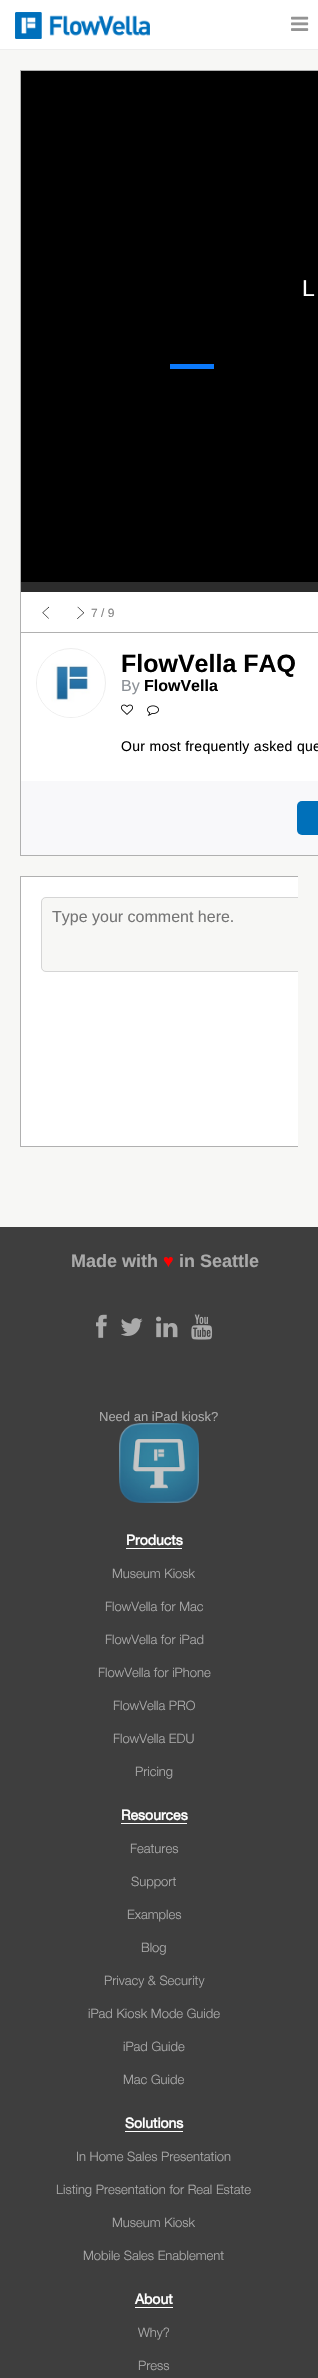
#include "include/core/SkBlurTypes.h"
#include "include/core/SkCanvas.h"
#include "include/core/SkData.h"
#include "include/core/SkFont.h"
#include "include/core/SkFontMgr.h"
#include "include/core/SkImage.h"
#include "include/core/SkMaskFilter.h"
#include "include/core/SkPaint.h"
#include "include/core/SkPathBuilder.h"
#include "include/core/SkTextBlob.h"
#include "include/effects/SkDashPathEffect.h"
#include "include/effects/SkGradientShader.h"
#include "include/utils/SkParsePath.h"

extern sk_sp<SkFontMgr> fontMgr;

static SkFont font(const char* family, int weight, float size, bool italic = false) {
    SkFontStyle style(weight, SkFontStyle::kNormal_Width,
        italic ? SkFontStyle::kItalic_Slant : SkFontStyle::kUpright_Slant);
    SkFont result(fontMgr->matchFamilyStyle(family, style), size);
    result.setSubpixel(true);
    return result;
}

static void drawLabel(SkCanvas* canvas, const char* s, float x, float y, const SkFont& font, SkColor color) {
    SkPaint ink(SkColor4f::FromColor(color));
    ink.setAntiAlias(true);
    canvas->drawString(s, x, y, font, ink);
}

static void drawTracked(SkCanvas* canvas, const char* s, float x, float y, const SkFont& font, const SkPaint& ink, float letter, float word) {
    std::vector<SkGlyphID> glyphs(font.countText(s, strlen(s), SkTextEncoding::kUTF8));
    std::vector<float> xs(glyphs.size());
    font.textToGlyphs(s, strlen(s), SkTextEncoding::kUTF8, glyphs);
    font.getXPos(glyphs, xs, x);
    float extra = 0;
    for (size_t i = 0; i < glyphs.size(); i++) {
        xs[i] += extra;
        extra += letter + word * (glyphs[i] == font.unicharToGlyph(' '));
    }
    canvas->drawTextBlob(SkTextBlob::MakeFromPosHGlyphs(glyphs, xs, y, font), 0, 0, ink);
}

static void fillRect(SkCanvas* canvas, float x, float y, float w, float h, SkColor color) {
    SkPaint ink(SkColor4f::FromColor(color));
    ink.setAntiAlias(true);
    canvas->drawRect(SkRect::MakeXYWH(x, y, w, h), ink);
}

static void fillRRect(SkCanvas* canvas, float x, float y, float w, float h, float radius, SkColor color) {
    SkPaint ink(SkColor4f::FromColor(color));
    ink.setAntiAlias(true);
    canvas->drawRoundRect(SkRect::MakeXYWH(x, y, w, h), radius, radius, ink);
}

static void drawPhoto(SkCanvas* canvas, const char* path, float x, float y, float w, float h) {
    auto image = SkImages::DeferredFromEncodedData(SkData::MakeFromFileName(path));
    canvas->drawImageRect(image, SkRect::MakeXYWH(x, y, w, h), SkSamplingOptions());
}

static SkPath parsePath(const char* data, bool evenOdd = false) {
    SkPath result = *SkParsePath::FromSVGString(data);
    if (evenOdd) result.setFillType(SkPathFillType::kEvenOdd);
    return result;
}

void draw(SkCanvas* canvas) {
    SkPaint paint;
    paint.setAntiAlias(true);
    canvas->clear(0xFF3E3E3E);
    fillRect(canvas, 0, 0, 318, 49, 0xFFFFFFFF);
    fillRect(canvas, 0, 49, 318, 1, 0xFFEEEEEE);
    drawPhoto(canvas, "assets/img1.png", 15, 12, 135, 27);
    drawPhoto(canvas, "assets/img2.png", 291, 16, 18, 15);
    fillRect(canvas, 0, 50, 318, 1177, 0xFFF7F7F5);
    paint.setStroke(true);
    paint.setStrokeWidth(1);
    paint.setColor(0xFFB0B0B0);
    canvas->drawRect(SkRect::MakeXYWH(20.5f, 70.5f, 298, 785), paint);
    fillRect(canvas, 21, 71, 297, 511, 0xFF000000);
    SkFont font1 = font("Liberation Sans", 400, 23);
    drawLabel(canvas, "L", 302, 296, font1, 0xFFFFFFFF);
    fillRect(canvas, 170, 364, 44, 5, 0xFF0B79FB);
    fillRect(canvas, 21, 582, 297, 10, 0xFF2C2C2C);
    fillRect(canvas, 21, 592, 297, 40, 0xFFFFFFFF);
    fillRect(canvas, 21, 632, 297, 1, 0xFFB0B0B0);
    drawPhoto(canvas, "assets/img3.png", 42, 606, 7, 13);
    drawPhoto(canvas, "assets/img4.png", 77, 606, 7, 13);
    SkFont font2 = font("Liberation Sans", 400, 12);
    drawLabel(canvas, "7 / 9", 91, 617, font2, 0xFF838383);
    fillRect(canvas, 21, 633, 297, 148, 0xFFFFFFFF);
    paint.setColor(0xFFEEEEEE);
    canvas->drawCircle(71, 683, 34.5f, paint);
    drawPhoto(canvas, "assets/img5.png", 37, 651, 66, 66);
    SkFont font3 = font("Liberation Sans", 700, 25);
    drawLabel(canvas, "FlowVella FAQ", 121, 672, font3, 0xFF000000);
    SkFont font4 = font("Liberation Sans", 400, 16);
    drawLabel(canvas, "By", 121, 691, font4, 0xFF8B9096);
    SkFont font5 = font("Liberation Sans", 700, 16);
    drawLabel(canvas, "FlowVella", 144, 691, font5, 0xFF000000);
    drawPhoto(canvas, "assets/img6.png", 121, 704, 12, 11);
    drawPhoto(canvas, "assets/img7.png", 147, 705, 12, 11);
    SkFont font6 = font("Liberation Sans", 400, 14);
    paint.setStroke(false);
    paint.setColor(0xFF000000);
    drawTracked(canvas, "Our most frequently asked que", 121, 751, font6, paint, 0.3f, 0);
    fillRect(canvas, 21, 781, 297, 74, 0xFFF8F8FA);
    fillRRect(canvas, 297, 801, 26, 34, 5, 0xFF0070BA);
    fillRect(canvas, 21, 877, 277, 269, 0xFFFFFFFF);
    canvas->save();
    canvas->clipRect(SkRect::MakeXYWH(20, 876, 278, 331));
    paint.setStroke(true);
    paint.setColor(0xFFB0B0B0);
    canvas->drawRect(SkRect::MakeXYWH(20.5f, 876.5f, 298, 270), paint);
    canvas->restore();
    paint.setStroke(false);
    paint.setColor(0xFFF7F7F5);
    canvas->drawPath(parsePath("M46 897H298V972H46C43 972 41 970 41 967V902C41 899 43 897 46 897Z"), paint);
    canvas->save();
    canvas->clipRect(SkRect::MakeXYWH(41, 897, 257, 119));
    paint.setStroke(true);
    paint.setColor(0xFFD5D5D5);
    canvas->drawRoundRect(SkRect::MakeXYWH(41.5f, 897.5f, 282, 74), 4.5f, 4.5f, paint);
    canvas->restore();
    drawLabel(canvas, "Type your comment here.", 52, 922, font4, 0xFF757575);
    SkFont font7 = font("Liberation Sans", 700, 18);
    drawLabel(canvas, "Made with", 71, 1267, font7, 0xFFAAAAAA);
    drawLabel(canvas, "♥", 163, 1267, font7, 0xFFFF0000);
    drawLabel(canvas, "in Seattle", 179, 1267, font7, 0xFFAAAAAA);
    drawPhoto(canvas, "assets/img8.png", 96, 1314, 11, 24);
    drawPhoto(canvas, "assets/img9.png", 121, 1318, 22, 18);
    drawPhoto(canvas, "assets/img10.png", 156, 1316, 22, 22);
    drawPhoto(canvas, "assets/img11.png", 191, 1314, 22, 26);
    SkFont font8 = font("Liberation Sans", 400, 13);
    drawLabel(canvas, "Need an iPad kiosk?", 99, 1421, font8, 0xFFAAAAAA);
    drawPhoto(canvas, "assets/img12.png", 119, 1423, 80, 80);
    SkFont font9 = font("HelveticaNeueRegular", 700, 14);
    drawLabel(canvas, "Products", 126, 1545, font9, 0xFFFFFFFF);
    fillRect(canvas, 126, 1548, 56, 1, 0xFFFFFFFF);
    SkFont font10 = font("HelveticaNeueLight", 300, 13);
    drawLabel(canvas, "Museum Kiosk", 112, 1578, font10, 0xFFAAAAAA);
    drawLabel(canvas, "FlowVella for Mac", 105, 1611, font10, 0xFFAAAAAA);
    drawLabel(canvas, "FlowVella for iPad", 105, 1644, font10, 0xFFAAAAAA);
    drawLabel(canvas, "FlowVella for iPhone", 98, 1677, font10, 0xFFAAAAAA);
    drawLabel(canvas, "FlowVella PRO", 113, 1710, font10, 0xFFAAAAAA);
    drawLabel(canvas, "FlowVella EDU", 113, 1743, font10, 0xFFAAAAAA);
    drawLabel(canvas, "Pricing", 135, 1776, font10, 0xFFAAAAAA);
    drawLabel(canvas, "Resources", 121, 1820, font9, 0xFFFFFFFF);
    fillRect(canvas, 121, 1823, 66, 1, 0xFFFFFFFF);
    drawLabel(canvas, "Features", 130, 1853, font10, 0xFFAAAAAA);
    drawLabel(canvas, "Support", 131, 1886, font10, 0xFFAAAAAA);
    drawLabel(canvas, "Examples", 127, 1919, font10, 0xFFAAAAAA);
    drawLabel(canvas, "Blog", 141, 1952, font10, 0xFFAAAAAA);
    drawLabel(canvas, "Privacy & Security", 104, 1985, font10, 0xFFAAAAAA);
    drawLabel(canvas, "iPad Kiosk Mode Guide", 88, 2018, font10, 0xFFAAAAAA);
    drawLabel(canvas, "iPad Guide", 123, 2051, font10, 0xFFAAAAAA);
    drawLabel(canvas, "Mac Guide", 123, 2084, font10, 0xFFAAAAAA);
    drawLabel(canvas, "Solutions", 125, 2128, font9, 0xFFFFFFFF);
    fillRect(canvas, 125, 2131, 58, 1, 0xFFFFFFFF);
    drawLabel(canvas, "In Home Sales Presentation", 76, 2161, font10, 0xFFAAAAAA);
    drawLabel(canvas, "Listing Presentation for Real Estate", 56, 2194, font10, 0xFFAAAAAA);
    drawLabel(canvas, "Museum Kiosk", 112, 2227, font10, 0xFFAAAAAA);
    drawLabel(canvas, "Mobile Sales Enablement", 83, 2260, font10, 0xFFAAAAAA);
    drawLabel(canvas, "About", 135, 2304, font9, 0xFFFFFFFF);
    fillRect(canvas, 135, 2307, 38, 1, 0xFFFFFFFF);
    drawLabel(canvas, "Why?", 138, 2337, font10, 0xFFAAAAAA);
    drawLabel(canvas, "Press", 138, 2370, font10, 0xFFAAAAAA);
}
